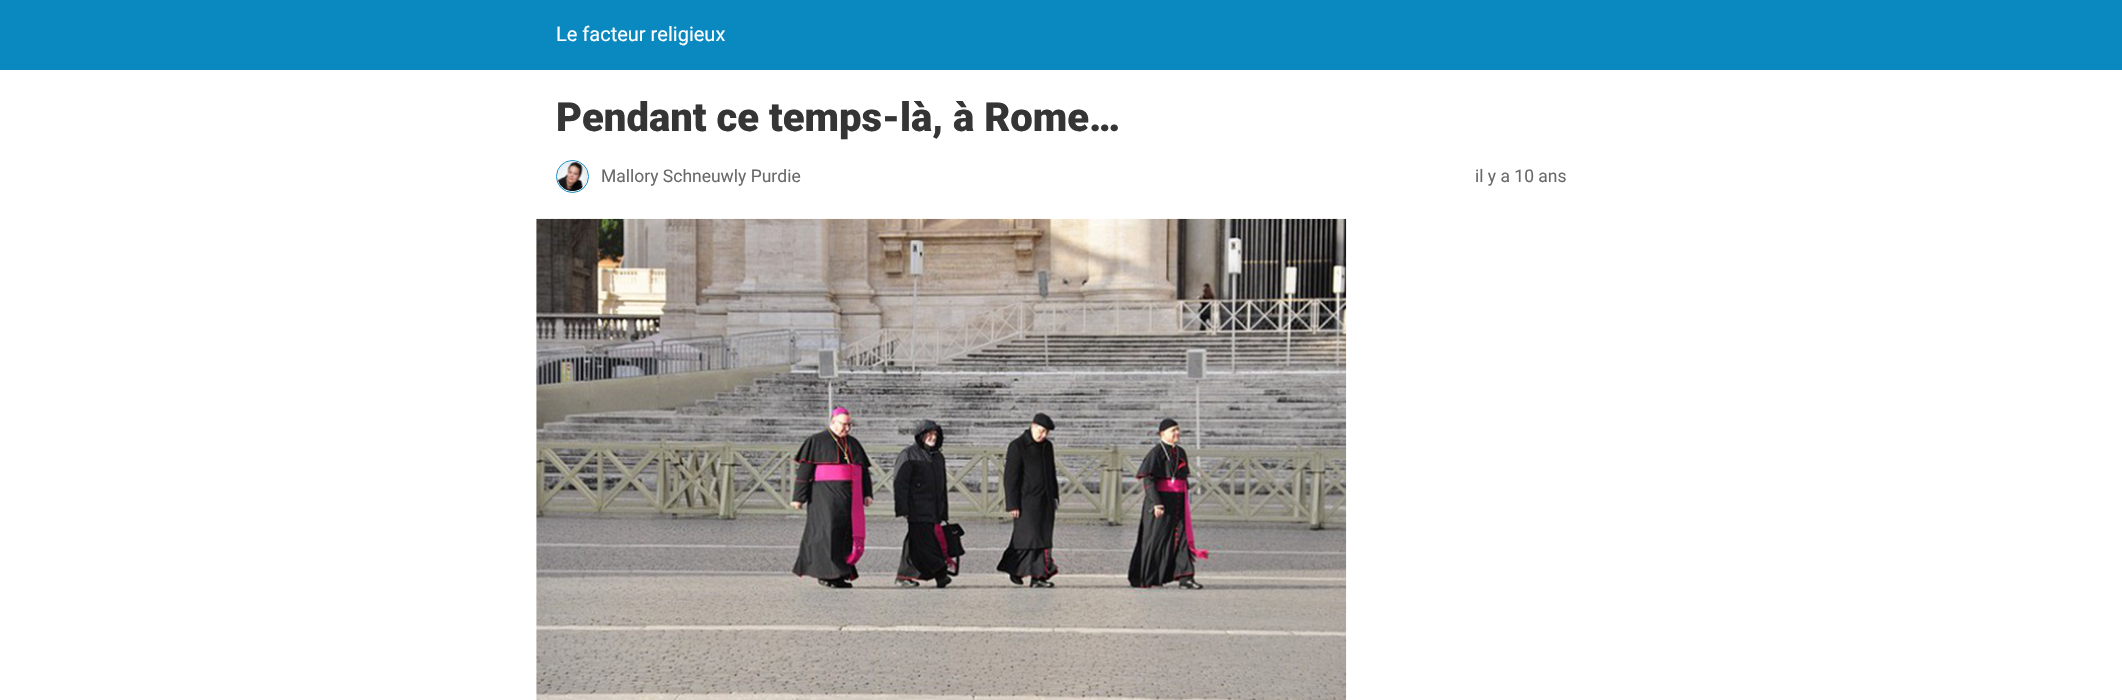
#include "include/core/SkBlurTypes.h"
#include "include/core/SkCanvas.h"
#include "include/core/SkData.h"
#include "include/core/SkFont.h"
#include "include/core/SkFontMgr.h"
#include "include/core/SkImage.h"
#include "include/core/SkMaskFilter.h"
#include "include/core/SkPaint.h"
#include "include/core/SkPathBuilder.h"
#include "include/core/SkTextBlob.h"
#include "include/effects/SkDashPathEffect.h"
#include "include/effects/SkGradientShader.h"
#include "include/utils/SkParsePath.h"

extern sk_sp<SkFontMgr> fontMgr;

static SkFont font(const char* family, int weight, float size, bool italic = false) {
    SkFontStyle style(weight, SkFontStyle::kNormal_Width,
        italic ? SkFontStyle::kItalic_Slant : SkFontStyle::kUpright_Slant);
    SkFont result(fontMgr->matchFamilyStyle(family, style), size);
    result.setSubpixel(true);
    return result;
}

static void drawLabel(SkCanvas* canvas, const char* s, float x, float y, const SkFont& font, SkColor color) {
    SkPaint ink(SkColor4f::FromColor(color));
    ink.setAntiAlias(true);
    canvas->drawString(s, x, y, font, ink);
}

static void fillRect(SkCanvas* canvas, float x, float y, float w, float h, SkColor color) {
    SkPaint ink(SkColor4f::FromColor(color));
    ink.setAntiAlias(true);
    canvas->drawRect(SkRect::MakeXYWH(x, y, w, h), ink);
}

static void drawPhoto(SkCanvas* canvas, const char* path, float x, float y, float w, float h) {
    auto image = SkImages::DeferredFromEncodedData(SkData::MakeFromFileName(path));
    canvas->drawImageRect(image, SkRect::MakeXYWH(x, y, w, h), SkSamplingOptions());
}

void draw(SkCanvas* canvas) {
    SkPaint paint;
    paint.setAntiAlias(true);
    canvas->clear(0xFFFFFFFF);
    fillRect(canvas, 0, 0, 2122, 70, 0xFF0A89C0);
    SkFont font1 = font("Roboto", 400, 20);
    drawLabel(canvas, "Le facteur religieux", 556, 41, font1, 0xFFFFFFFF);
    SkFont font2 = font("Roboto", 900, 40);
    drawLabel(canvas, "Pendant ce temps-là, à Rome…", 556, 131, font2, 0xFF353535);
    paint.setStroke(true);
    paint.setStrokeWidth(1);
    paint.setColor(0xFF0A89C0);
    canvas->drawCircle(572.5f, 176.5f, 16, paint);
    drawPhoto(canvas, "assets/img1.png", 557, 161, 31, 31);
    SkFont font3 = font("Roboto", 400, 17.5f);
    drawLabel(canvas, "Mallory Schneuwly Purdie", 601, 182, font3, 0xFF696969);
    drawLabel(canvas, "il y a 10 ans", 1475, 182, font3, 0xFF696969);
    drawPhoto(canvas, "assets/img2.png", 536, 218, 811, 482);
}
